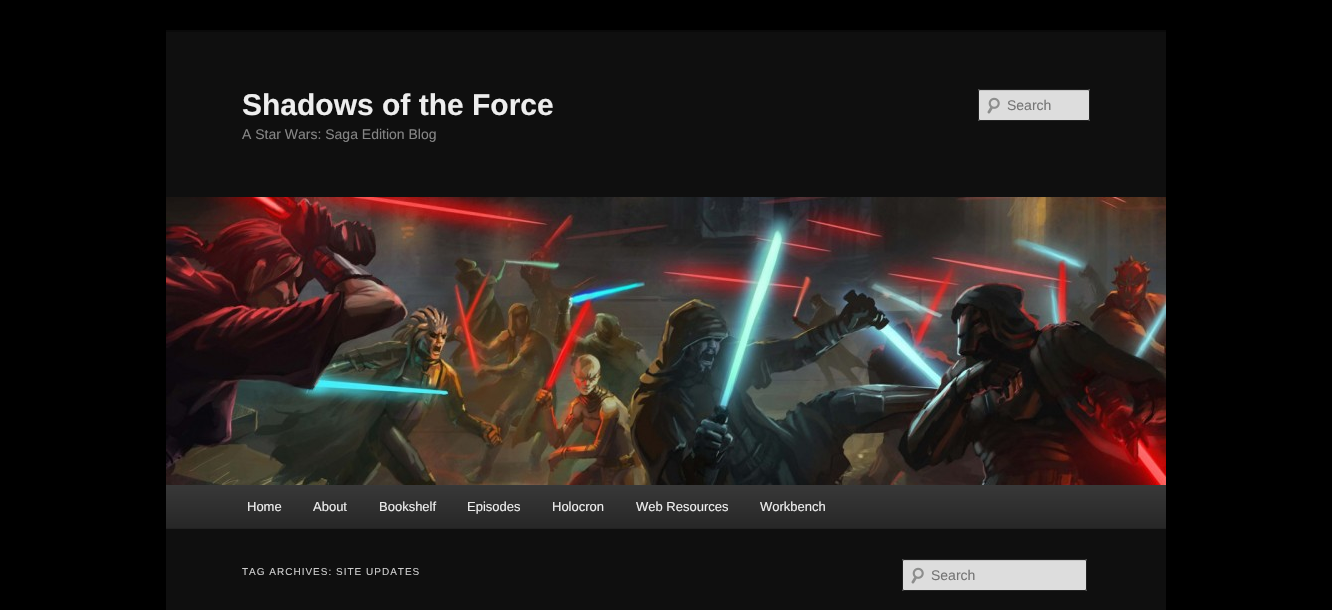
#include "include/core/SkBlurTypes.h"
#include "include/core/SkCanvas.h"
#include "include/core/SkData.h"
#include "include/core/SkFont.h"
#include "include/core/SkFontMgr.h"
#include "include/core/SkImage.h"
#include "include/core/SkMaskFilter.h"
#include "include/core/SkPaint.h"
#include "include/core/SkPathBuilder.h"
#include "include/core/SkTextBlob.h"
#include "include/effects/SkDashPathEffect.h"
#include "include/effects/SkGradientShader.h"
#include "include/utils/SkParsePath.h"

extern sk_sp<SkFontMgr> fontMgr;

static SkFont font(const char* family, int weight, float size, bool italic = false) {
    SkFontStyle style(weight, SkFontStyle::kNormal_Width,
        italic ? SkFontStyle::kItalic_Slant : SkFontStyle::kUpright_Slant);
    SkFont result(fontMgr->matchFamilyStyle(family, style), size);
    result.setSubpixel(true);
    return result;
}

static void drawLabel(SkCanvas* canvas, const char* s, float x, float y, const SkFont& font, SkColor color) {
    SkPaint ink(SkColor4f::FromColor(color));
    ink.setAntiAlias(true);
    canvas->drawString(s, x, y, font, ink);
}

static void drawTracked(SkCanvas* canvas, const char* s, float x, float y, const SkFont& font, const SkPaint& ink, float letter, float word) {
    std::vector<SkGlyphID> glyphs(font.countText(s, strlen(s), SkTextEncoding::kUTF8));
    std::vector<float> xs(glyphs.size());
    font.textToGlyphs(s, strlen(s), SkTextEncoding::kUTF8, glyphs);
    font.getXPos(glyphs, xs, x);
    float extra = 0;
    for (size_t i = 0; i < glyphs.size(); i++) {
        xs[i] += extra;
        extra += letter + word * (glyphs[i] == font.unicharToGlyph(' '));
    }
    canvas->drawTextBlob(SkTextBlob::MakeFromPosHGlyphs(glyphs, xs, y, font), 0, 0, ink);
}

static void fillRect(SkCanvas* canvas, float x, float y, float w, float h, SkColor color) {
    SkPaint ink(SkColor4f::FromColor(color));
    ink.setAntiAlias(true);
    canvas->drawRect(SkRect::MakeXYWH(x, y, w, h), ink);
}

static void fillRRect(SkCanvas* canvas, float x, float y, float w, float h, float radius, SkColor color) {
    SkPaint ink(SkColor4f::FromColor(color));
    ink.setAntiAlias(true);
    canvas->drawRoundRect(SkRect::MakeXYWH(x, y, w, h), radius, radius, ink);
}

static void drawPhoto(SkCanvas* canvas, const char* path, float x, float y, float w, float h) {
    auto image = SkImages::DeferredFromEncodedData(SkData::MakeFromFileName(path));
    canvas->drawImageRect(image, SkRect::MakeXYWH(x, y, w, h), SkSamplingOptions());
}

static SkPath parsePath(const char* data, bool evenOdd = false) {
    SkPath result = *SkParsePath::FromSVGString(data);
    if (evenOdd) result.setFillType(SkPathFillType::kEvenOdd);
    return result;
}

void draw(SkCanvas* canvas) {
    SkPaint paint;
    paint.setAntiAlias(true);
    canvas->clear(0xFF000000);
    fillRect(canvas, 166, 32, 1000, 578, 0xFF0F0F0F);
    fillRect(canvas, 166, 30, 1000, 2, 0xFF0A0A0A);
    SkFont font1 = font("Liberation Sans", 700, 30);
    drawLabel(canvas, "Shadows of the Force", 242, 115, font1, 0xFFEEEEEE);
    SkFont font2 = font("Liberation Sans", 400, 14);
    drawLabel(canvas, "A Star Wars: Saga Edition Blog", 242, 139, font2, 0xFF858585);
    fillRRect(canvas, 978, 89, 112, 32, 2, 0xFFDDDDDD);
    drawPhoto(canvas, "assets/img1.png", 987, 97, 13, 17);
    paint.setColor(0x1A000000);
    canvas->drawPath(parsePath("M980 91H1089V92C1089 85 1074 90 1070 90H980L979 92C979 91 979 91 980 91Z"), paint);
    paint.setStroke(true);
    paint.setStrokeWidth(1);
    paint.setColor(0xFF222222);
    canvas->drawRoundRect(SkRect::MakeXYWH(978.5f, 89.5f, 111, 31), 1.5f, 1.5f, paint);
    drawLabel(canvas, "Search", 1007, 110, font2, 0xFF757575);
    drawPhoto(canvas, "assets/img2.png", 166, 197, 1000, 288);
    paint.setStroke(false);
    {
        const SkColor colors[] = {0xFF383838, 0xFF272727};
        const float stops[] = {0, 1};
        const SkPoint ends[] = {{666, 485}, {666, 528}};
        paint.setShader(SkGradientShader::MakeLinear(ends, colors, stops, 2, SkTileMode::kClamp));
        paint.setAlpha(255);
    }
    canvas->drawRect(SkRect::MakeXYWH(166, 485, 1000, 43), paint);
    fillRect(canvas, 166, 528, 1000, 1, 0xFF222222);
    SkFont font3 = font("Liberation Sans", 400, 13);
    drawLabel(canvas, "Home", 247, 511, font3, 0xFFEEEEEE);
    drawLabel(canvas, "About", 313, 511, font3, 0xFFEEEEEE);
    drawLabel(canvas, "Bookshelf", 379, 511, font3, 0xFFEEEEEE);
    drawLabel(canvas, "Episodes", 467, 511, font3, 0xFFEEEEEE);
    drawLabel(canvas, "Holocron", 552, 511, font3, 0xFFEEEEEE);
    drawLabel(canvas, "Web Resources", 636, 511, font3, 0xFFEEEEEE);
    drawLabel(canvas, "Workbench", 760, 511, font3, 0xFFEEEEEE);
    SkFont font4 = font("Liberation Sans", 400, 10);
    paint.setShader(nullptr);
    paint.setColor(0xFFCCCCCC);
    drawTracked(canvas, "TAG ARCHIVES: SITE UPDATES", 242, 575, font4, paint, 1, 0);
    fillRRect(canvas, 902, 559, 185, 32, 2, 0xFFDDDDDD);
    drawPhoto(canvas, "assets/img1.png", 911, 567, 13, 17);
    paint.setColor(0xFFC7C7C7);
    canvas->drawPath(parsePath("M904 561H1086V562C1086 561 1086 560 1085 560H903V562C903 561 903 561 904 561Z"), paint);
    paint.setStroke(true);
    paint.setColor(0xFF222222);
    canvas->drawRoundRect(SkRect::MakeXYWH(902.5f, 559.5f, 184, 31), 1.5f, 1.5f, paint);
    drawLabel(canvas, "Search", 931, 580, font2, 0xFF757575);
}
